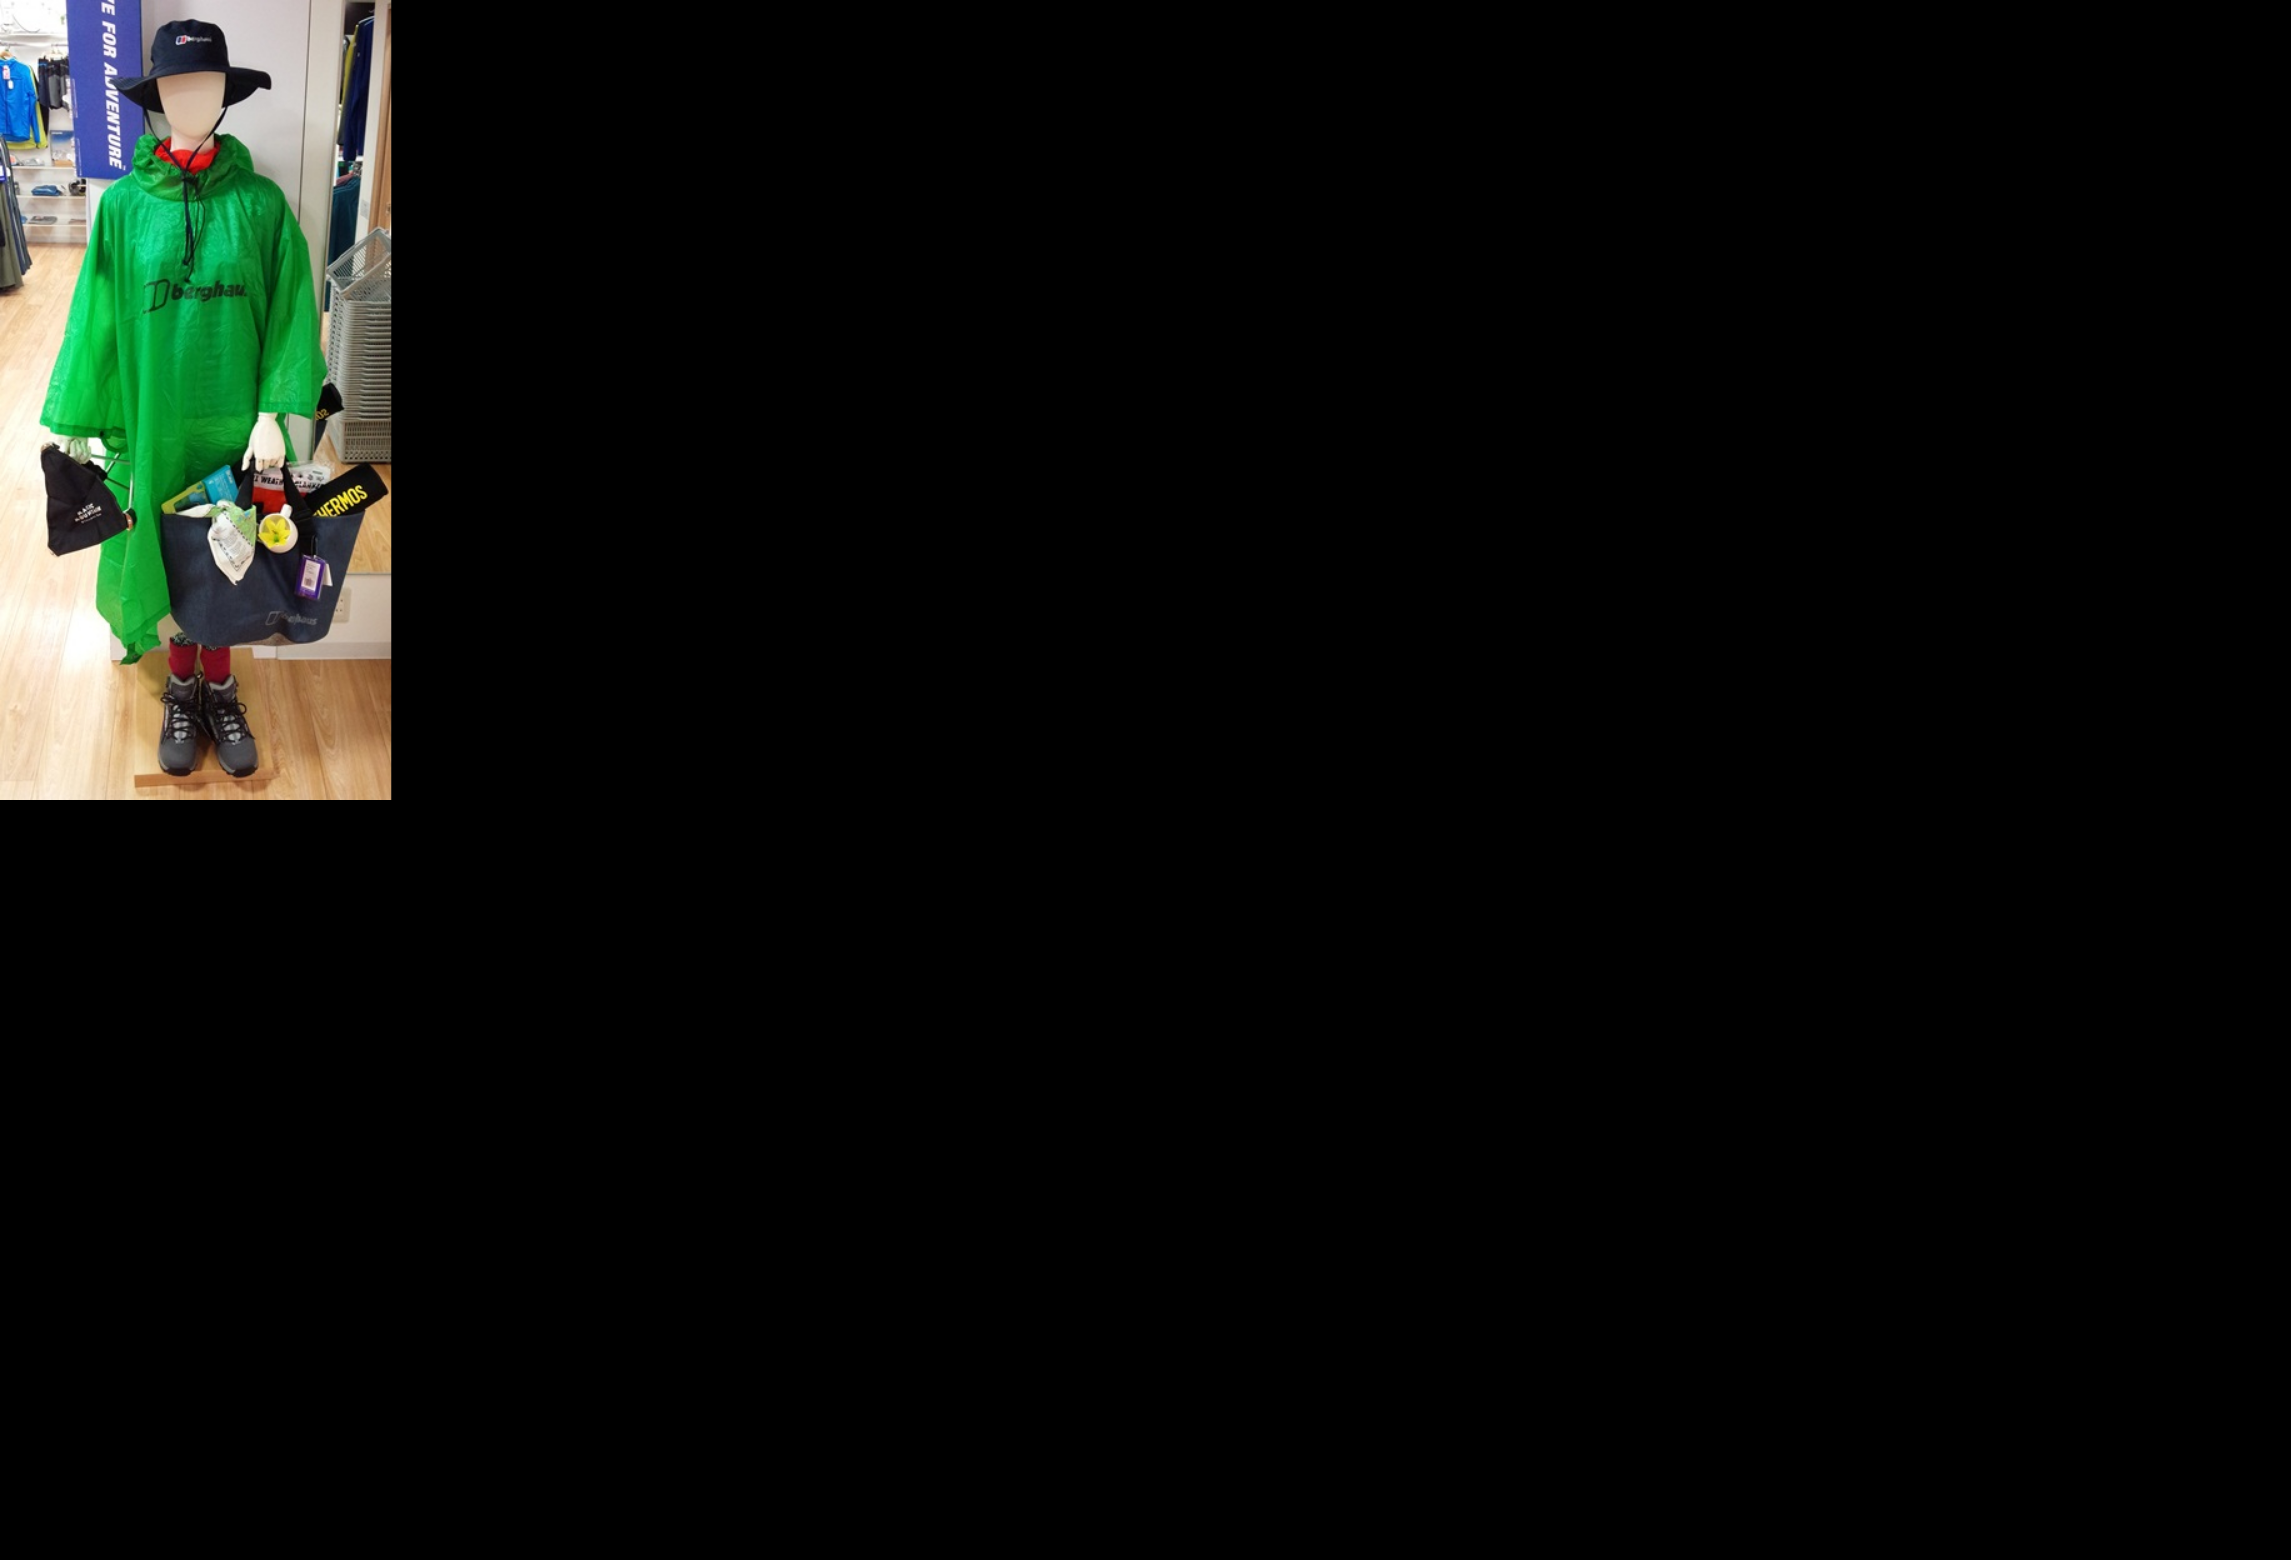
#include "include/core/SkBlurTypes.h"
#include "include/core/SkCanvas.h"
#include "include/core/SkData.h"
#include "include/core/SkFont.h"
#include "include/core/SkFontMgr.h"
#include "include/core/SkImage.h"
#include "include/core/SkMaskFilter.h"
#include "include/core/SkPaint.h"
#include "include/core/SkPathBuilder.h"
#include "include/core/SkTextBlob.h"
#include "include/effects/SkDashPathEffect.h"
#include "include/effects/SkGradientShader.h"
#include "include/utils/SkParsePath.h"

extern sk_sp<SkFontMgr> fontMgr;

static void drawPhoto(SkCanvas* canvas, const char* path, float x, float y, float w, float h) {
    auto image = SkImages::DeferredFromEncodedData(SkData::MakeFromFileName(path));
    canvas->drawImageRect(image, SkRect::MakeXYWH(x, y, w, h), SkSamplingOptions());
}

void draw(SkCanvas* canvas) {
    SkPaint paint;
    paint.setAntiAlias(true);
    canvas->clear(0xFF000000);
    drawPhoto(canvas, "assets/img1.png", 0, 0, 392, 800);
}
